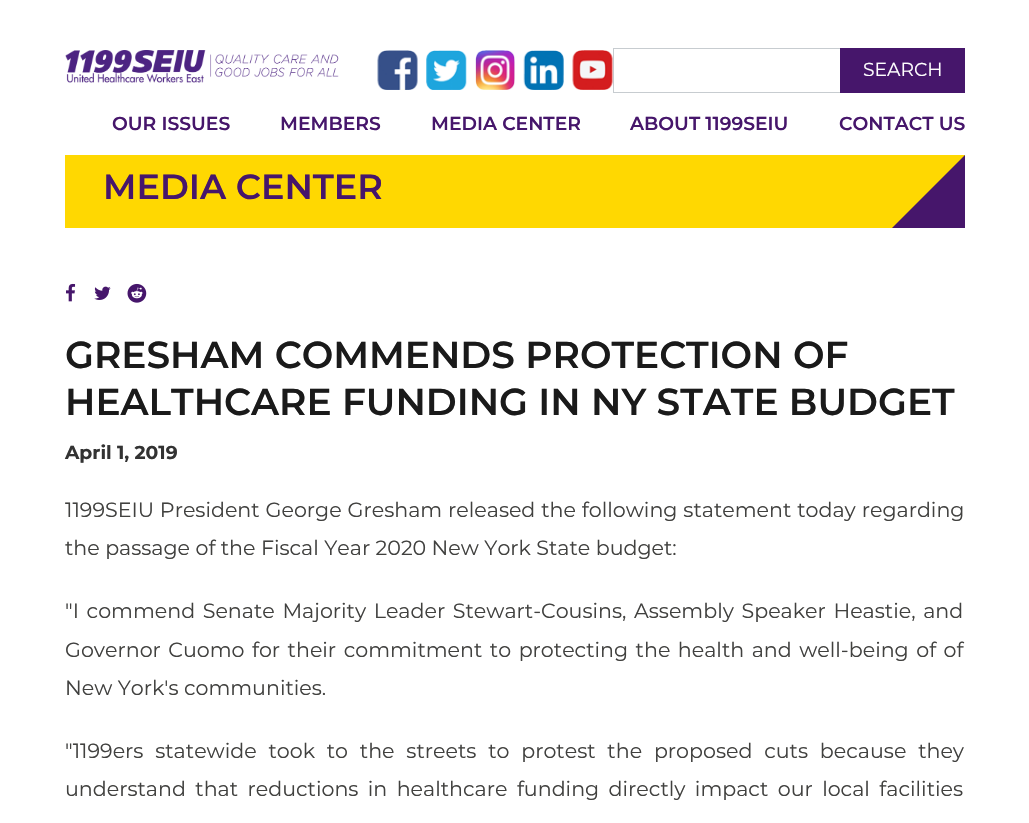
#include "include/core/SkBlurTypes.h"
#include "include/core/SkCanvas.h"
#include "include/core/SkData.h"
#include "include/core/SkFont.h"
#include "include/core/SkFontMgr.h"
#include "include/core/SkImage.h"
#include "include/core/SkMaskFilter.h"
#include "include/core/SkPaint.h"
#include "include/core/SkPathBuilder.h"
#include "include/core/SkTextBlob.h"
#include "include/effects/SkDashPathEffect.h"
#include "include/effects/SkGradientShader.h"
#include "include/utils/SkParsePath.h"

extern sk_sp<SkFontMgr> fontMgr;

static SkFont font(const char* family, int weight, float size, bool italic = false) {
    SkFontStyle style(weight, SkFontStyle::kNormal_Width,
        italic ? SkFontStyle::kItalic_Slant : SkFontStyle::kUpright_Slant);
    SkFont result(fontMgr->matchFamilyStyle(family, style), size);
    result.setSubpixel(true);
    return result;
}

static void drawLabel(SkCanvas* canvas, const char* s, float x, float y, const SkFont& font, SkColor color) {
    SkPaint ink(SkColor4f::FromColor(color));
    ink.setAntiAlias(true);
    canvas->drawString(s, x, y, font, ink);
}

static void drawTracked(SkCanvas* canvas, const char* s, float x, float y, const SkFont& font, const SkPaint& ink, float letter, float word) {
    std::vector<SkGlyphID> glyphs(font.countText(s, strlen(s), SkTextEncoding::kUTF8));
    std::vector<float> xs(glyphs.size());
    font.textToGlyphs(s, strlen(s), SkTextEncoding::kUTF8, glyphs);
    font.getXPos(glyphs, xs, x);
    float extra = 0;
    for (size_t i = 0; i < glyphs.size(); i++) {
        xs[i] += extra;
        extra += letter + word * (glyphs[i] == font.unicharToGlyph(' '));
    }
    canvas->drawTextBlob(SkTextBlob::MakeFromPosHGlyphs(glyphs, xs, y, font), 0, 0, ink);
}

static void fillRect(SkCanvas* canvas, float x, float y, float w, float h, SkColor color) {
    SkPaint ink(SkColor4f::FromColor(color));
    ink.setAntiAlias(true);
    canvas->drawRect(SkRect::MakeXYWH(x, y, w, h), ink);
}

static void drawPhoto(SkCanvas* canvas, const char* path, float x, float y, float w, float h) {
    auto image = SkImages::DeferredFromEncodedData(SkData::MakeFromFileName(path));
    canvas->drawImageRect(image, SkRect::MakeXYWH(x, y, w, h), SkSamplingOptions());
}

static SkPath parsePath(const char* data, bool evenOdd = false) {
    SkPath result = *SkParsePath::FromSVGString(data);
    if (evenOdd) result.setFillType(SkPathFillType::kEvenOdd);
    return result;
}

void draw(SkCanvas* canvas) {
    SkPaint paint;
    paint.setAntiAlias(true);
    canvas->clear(0xFFFFFFFF);
    drawPhoto(canvas, "assets/img1.png", 65, 50, 274, 33);
    drawPhoto(canvas, "assets/img2.png", 377, 50, 41, 40);
    drawPhoto(canvas, "assets/img3.png", 426, 50, 41, 40);
    drawPhoto(canvas, "assets/img4.png", 475, 50, 40, 40);
    drawPhoto(canvas, "assets/img5.png", 523, 50, 41, 40);
    drawPhoto(canvas, "assets/img6.png", 572, 50, 41, 40);
    paint.setStroke(true);
    paint.setStrokeWidth(1);
    paint.setColor(0xFFC7CCD0);
    canvas->drawRect(SkRect::MakeXYWH(613.5f, 48.5f, 227, 44), paint);
    fillRect(canvas, 840, 48, 125, 45, 0xFF46166B);
    SkFont font1 = font("Montserrat", 400, 18.75f);
    drawLabel(canvas, "SEARCH", 863, 76, font1, 0xFFFFFFFF);
    SkFont font2 = font("Montserrat", 600, 18.75f);
    drawLabel(canvas, "OUR ISSUES", 112, 130, font2, 0xFF46166B);
    drawLabel(canvas, "MEMBERS", 280, 130, font2, 0xFF46166B);
    drawLabel(canvas, "MEDIA CENTER", 431, 130, font2, 0xFF46166B);
    drawLabel(canvas, "ABOUT 1199SEIU", 630, 130, font2, 0xFF46166B);
    drawLabel(canvas, "CONTACT US", 839, 130, font2, 0xFF46166B);
    fillRect(canvas, 65, 155, 900, 73, 0xFFFFD801);
    SkFont font3 = font("Montserrat", 600, 35);
    drawLabel(canvas, "MEDIA CENTER", 103, 199, font3, 0xFF46166B);
    paint.setStroke(false);
    paint.setColor(0xFF46166B);
    canvas->drawPath(parsePath("M965 155V228H892Z"), paint);
    drawPhoto(canvas, "assets/img7.png", 66, 283, 10, 19);
    drawPhoto(canvas, "assets/img8.png", 94, 286, 17, 14);
    drawPhoto(canvas, "assets/img9.png", 127, 283, 20, 20);
    SkFont font4 = font("Montserrat", 600, 37.5f);
    drawLabel(canvas, "GRESHAM COMMENDS PROTECTION OF", 65, 368, font4, 0xFF1A1A1A);
    drawLabel(canvas, "HEALTHCARE FUNDING IN NY STATE BUDGET", 65, 415, font4, 0xFF1A1A1A);
    SkFont font5 = font("Montserrat", 700, 18.75f);
    drawLabel(canvas, "April 1, 2019", 65, 459, font5, 0xFF333333);
    SkFont font6 = font("Montserrat", 400, 20.6f);
    paint.setColor(0xFF41413F);
    drawTracked(canvas, "1199SEIU President George Gresham released the following statement today regarding", 65, 517, font6, paint, 0, 0.5f);
    drawLabel(canvas, "the passage of the Fiscal Year 2020 New York State budget:", 65, 555, font6, 0xFF41413F);
    drawTracked(canvas, "\"I commend Senate Majority Leader Stewart-Cousins, Assembly Speaker Heastie, and", 65, 618, font6, paint, 0, 2.25f);
    drawTracked(canvas, "Governor Cuomo for their commitment to protecting the health and well-being of of", 65, 657, font6, paint, 0, 2.1f);
    drawLabel(canvas, "New York's communities.", 65, 695, font6, 0xFF41413F);
    drawTracked(canvas, "\"1199ers statewide took to the streets to protest the proposed cuts because they", 65, 758, font6, paint, 0, 6.4f);
    drawTracked(canvas, "understand that reductions in healthcare funding directly impact our local facilities", 65, 796, font6, paint, 0, 4);
}
